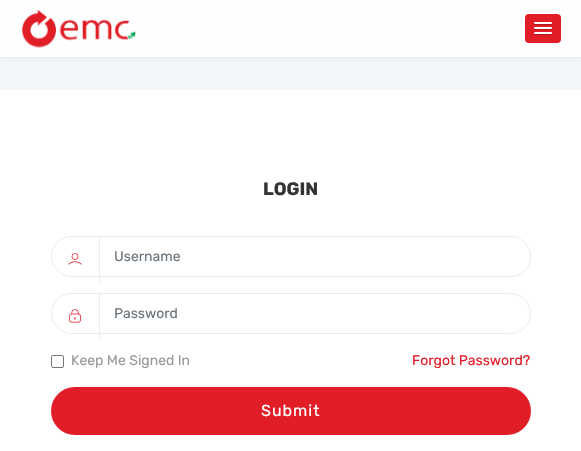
#include "include/core/SkBlurTypes.h"
#include "include/core/SkCanvas.h"
#include "include/core/SkData.h"
#include "include/core/SkFont.h"
#include "include/core/SkFontMgr.h"
#include "include/core/SkImage.h"
#include "include/core/SkMaskFilter.h"
#include "include/core/SkPaint.h"
#include "include/core/SkPathBuilder.h"
#include "include/core/SkTextBlob.h"
#include "include/effects/SkDashPathEffect.h"
#include "include/effects/SkGradientShader.h"
#include "include/utils/SkParsePath.h"

extern sk_sp<SkFontMgr> fontMgr;

static SkFont font(const char* family, int weight, float size, bool italic = false) {
    SkFontStyle style(weight, SkFontStyle::kNormal_Width,
        italic ? SkFontStyle::kItalic_Slant : SkFontStyle::kUpright_Slant);
    SkFont result(fontMgr->matchFamilyStyle(family, style), size);
    result.setSubpixel(true);
    return result;
}

static void drawLabel(SkCanvas* canvas, const char* s, float x, float y, const SkFont& font, SkColor color) {
    SkPaint ink(SkColor4f::FromColor(color));
    ink.setAntiAlias(true);
    canvas->drawString(s, x, y, font, ink);
}

static void drawTracked(SkCanvas* canvas, const char* s, float x, float y, const SkFont& font, const SkPaint& ink, float letter, float word) {
    std::vector<SkGlyphID> glyphs(font.countText(s, strlen(s), SkTextEncoding::kUTF8));
    std::vector<float> xs(glyphs.size());
    font.textToGlyphs(s, strlen(s), SkTextEncoding::kUTF8, glyphs);
    font.getXPos(glyphs, xs, x);
    float extra = 0;
    for (size_t i = 0; i < glyphs.size(); i++) {
        xs[i] += extra;
        extra += letter + word * (glyphs[i] == font.unicharToGlyph(' '));
    }
    canvas->drawTextBlob(SkTextBlob::MakeFromPosHGlyphs(glyphs, xs, y, font), 0, 0, ink);
}

static void fillRect(SkCanvas* canvas, float x, float y, float w, float h, SkColor color) {
    SkPaint ink(SkColor4f::FromColor(color));
    ink.setAntiAlias(true);
    canvas->drawRect(SkRect::MakeXYWH(x, y, w, h), ink);
}

static void fillRRect(SkCanvas* canvas, float x, float y, float w, float h, float radius, SkColor color) {
    SkPaint ink(SkColor4f::FromColor(color));
    ink.setAntiAlias(true);
    canvas->drawRoundRect(SkRect::MakeXYWH(x, y, w, h), radius, radius, ink);
}

static void drawPhoto(SkCanvas* canvas, const char* path, float x, float y, float w, float h) {
    auto image = SkImages::DeferredFromEncodedData(SkData::MakeFromFileName(path));
    canvas->drawImageRect(image, SkRect::MakeXYWH(x, y, w, h), SkSamplingOptions());
}

static SkPath parsePath(const char* data, bool evenOdd = false) {
    SkPath result = *SkParsePath::FromSVGString(data);
    if (evenOdd) result.setFillType(SkPathFillType::kEvenOdd);
    return result;
}

void draw(SkCanvas* canvas) {
    SkPaint paint;
    paint.setAntiAlias(true);
    canvas->clear(0xFFFFFFFF);
    fillRect(canvas, 0, 57, 581, 33, 0xFFF2F7FB);
    paint.setColor(0x0F000000);
    paint.setMaskFilter(SkMaskFilter::MakeBlur(kNormal_SkBlurStyle, 3.5f));
    canvas->drawRect(SkRect::MakeXYWH(0, 1, 581, 57), paint);
    paint.setMaskFilter(nullptr);
    fillRect(canvas, 0, 0, 581, 57, 0xFFFEFEFF);
    drawPhoto(canvas, "assets/img1.png", 21, 9, 115, 39);
    fillRRect(canvas, 525, 14, 36, 29, 4, 0xFFE11E27);
    paint.setColor(0xFFA9171D);
    canvas->drawPath(parsePath("M534 23.5C533 25.5 537.5 25 537.5 25H548.5C548.5 25 553 25.5 552 23.5C551 24.5 544.5 24 543 24C541.5 24 535 24.5 534 23.5Z"), paint);
    fillRRect(canvas, 534, 22, 18, 2, 1, 0xFFFFFFFF);
    canvas->drawPath(parsePath("M534 28.5C533 30.5 537.5 30 537.5 30H548.5C548.5 30 553 30.5 552 28.5C551 29.5 544.5 29 543 29C541.5 29 535 29.5 534 28.5Z"), paint);
    fillRRect(canvas, 534, 27, 18, 2, 1, 0xFFFFFFFF);
    canvas->drawPath(parsePath("M534 33.5C533 35.5 537.5 35 537.5 35H548.5C548.5 35 553 35.5 552 33.5C551 34.5 544.5 34 543 34C541.5 34 535 34.5 534 33.5Z"), paint);
    fillRRect(canvas, 534, 32, 18, 2, 1, 0xFFFFFFFF);
    SkFont font1 = font("Rubik", 700, 18);
    drawLabel(canvas, "LOGIN", 263, 195, font1, 0xFF333333);
    paint.setStroke(true);
    paint.setStrokeWidth(1);
    paint.setColor(0xFFECECEC);
    canvas->drawRoundRect(SkRect::MakeXYWH(51.5f, 236.5f, 479, 40), 20, 20, paint);
    fillRect(canvas, 99, 237, 1, 45, 0xFFECECEC);
    drawPhoto(canvas, "assets/img2.png", 68, 253, 14, 12);
    SkFont font2 = font("Rubik", 400, 14);
    drawLabel(canvas, "Username", 114, 261, font2, 0xFF6C757D);
    canvas->drawRoundRect(SkRect::MakeXYWH(51.5f, 293.5f, 479, 40), 20, 20, paint);
    fillRect(canvas, 99, 294, 1, 45, 0xFFECECEC);
    drawPhoto(canvas, "assets/img3.png", 69, 309, 12, 14);
    drawLabel(canvas, "Password", 114, 318, font2, 0xFF6C757D);
    paint.setColor(0xFF767676);
    canvas->drawRoundRect(SkRect::MakeXYWH(51.5f, 355.5f, 12, 12), 1.5f, 1.5f, paint);
    drawLabel(canvas, "Keep Me Signed In", 71, 365, font2, 0xFF9A9A9A);
    drawLabel(canvas, "Forgot Password?", 412, 365, font2, 0xFFE11E27);
    fillRRect(canvas, 51, 387, 480, 48, 24, 0xFFE11E27);
    SkFont font3 = font("Rubik", 400, 16);
    paint.setStroke(false);
    paint.setColor(0xFFFFFFFF);
    drawTracked(canvas, "Submit", 261, 416, font3, paint, 1, 0);
}
